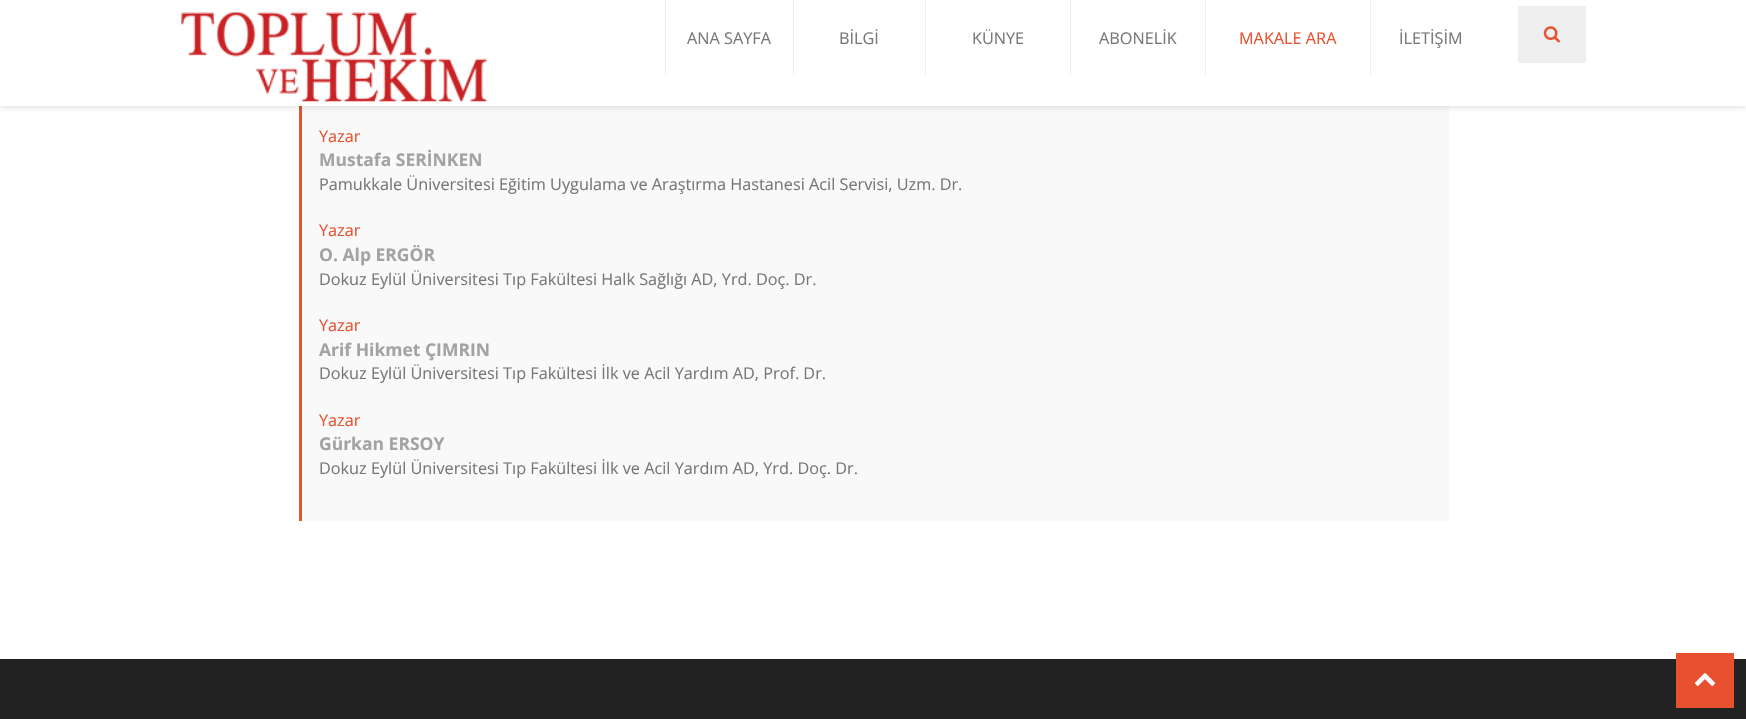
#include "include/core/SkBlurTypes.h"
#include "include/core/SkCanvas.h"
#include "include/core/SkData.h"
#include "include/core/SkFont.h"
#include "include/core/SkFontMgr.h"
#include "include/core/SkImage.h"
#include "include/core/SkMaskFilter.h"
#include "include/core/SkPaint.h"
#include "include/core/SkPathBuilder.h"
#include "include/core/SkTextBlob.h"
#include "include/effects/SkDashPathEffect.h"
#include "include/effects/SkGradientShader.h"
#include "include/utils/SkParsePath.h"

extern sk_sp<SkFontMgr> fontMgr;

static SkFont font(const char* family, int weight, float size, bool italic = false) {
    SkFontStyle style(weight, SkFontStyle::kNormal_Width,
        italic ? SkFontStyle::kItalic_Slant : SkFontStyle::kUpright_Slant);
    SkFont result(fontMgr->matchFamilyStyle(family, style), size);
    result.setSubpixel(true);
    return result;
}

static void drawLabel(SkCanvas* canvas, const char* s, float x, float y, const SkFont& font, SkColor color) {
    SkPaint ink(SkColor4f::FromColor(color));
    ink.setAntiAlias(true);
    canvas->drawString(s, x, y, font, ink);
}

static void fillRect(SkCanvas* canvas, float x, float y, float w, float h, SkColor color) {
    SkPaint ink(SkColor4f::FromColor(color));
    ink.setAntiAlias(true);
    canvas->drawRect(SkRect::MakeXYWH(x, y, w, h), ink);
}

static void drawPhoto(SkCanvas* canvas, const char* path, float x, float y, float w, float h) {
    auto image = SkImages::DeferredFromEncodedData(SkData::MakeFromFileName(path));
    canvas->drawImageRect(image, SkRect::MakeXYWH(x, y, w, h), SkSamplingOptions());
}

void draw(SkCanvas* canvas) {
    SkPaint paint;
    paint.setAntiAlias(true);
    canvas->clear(0xFFFFFFFF);
    fillRect(canvas, 302, 106, 1147, 415, 0xFFF9F9F9);
    fillRect(canvas, 299, 105, 3, 416, 0xFFE7512F);
    paint.setColor(0x1A000000);
    paint.setMaskFilter(SkMaskFilter::MakeBlur(kNormal_SkBlurStyle, 2.5f));
    canvas->drawRect(SkRect::MakeXYWH(0, 1, 1746, 107), paint);
    paint.setMaskFilter(nullptr);
    fillRect(canvas, 0, 0, 1746, 106, 0xFFFFFFFF);
    drawPhoto(canvas, "assets/img1.png", 181, 12, 306, 90);
    fillRect(canvas, 665, 0, 1, 75, 0xFFEEEEEE);
    SkFont font1 = font("Open Sans", 400, 16.25f);
    drawLabel(canvas, "ANA SAYFA", 687, 44, font1, 0xFF777777);
    fillRect(canvas, 793, 0, 1, 75, 0xFFEEEEEE);
    drawLabel(canvas, "BİLGİ", 839, 44, font1, 0xFF777777);
    fillRect(canvas, 925, 0, 1, 75, 0xFFEEEEEE);
    drawLabel(canvas, "KÜNYE", 972, 44, font1, 0xFF777777);
    fillRect(canvas, 1070, 0, 1, 75, 0xFFEEEEEE);
    drawLabel(canvas, "ABONELİK", 1099, 44, font1, 0xFF777777);
    fillRect(canvas, 1205, 0, 1, 75, 0xFFEEEEEE);
    drawLabel(canvas, "MAKALE ARA", 1239, 44, font1, 0xFFE7512F);
    fillRect(canvas, 1370, 0, 1, 75, 0xFFEEEEEE);
    drawLabel(canvas, "İLETİŞİM", 1399, 44, font1, 0xFF777777);
    fillRect(canvas, 1518, 6, 68, 57, 0xFFEEEEEE);
    drawPhoto(canvas, "assets/img2.png", 1543, 26, 17, 17);
    drawLabel(canvas, "Yazar", 319, 142, font1, 0xFFE7512F);
    SkFont font2 = font("Open Sans", 700, 17.5f);
    drawLabel(canvas, "Mustafa SERİNKEN", 319, 166, font2, 0xFFA3A3A3);
    drawLabel(canvas, "Pamukkale Üniversitesi Eğitim Uygulama ve Araştırma Hastanesi Acil Servisi, Uzm. Dr.", 319, 190, font1, 0xFF777777);
    drawLabel(canvas, "Yazar", 319, 236, font1, 0xFFE7512F);
    drawLabel(canvas, "O. Alp ERGÖR", 319, 261, font2, 0xFFA3A3A3);
    drawLabel(canvas, "Dokuz Eylül Üniversitesi Tıp Fakültesi Halk Sağlığı AD, Yrd. Doç. Dr.", 319, 285, font1, 0xFF777777);
    drawLabel(canvas, "Yazar", 319, 331, font1, 0xFFE7512F);
    drawLabel(canvas, "Arif Hikmet ÇIMRIN", 319, 356, font2, 0xFFA3A3A3);
    drawLabel(canvas, "Dokuz Eylül Üniversitesi Tıp Fakültesi İlk ve Acil Yardım AD, Prof. Dr.", 319, 379, font1, 0xFF777777);
    drawLabel(canvas, "Yazar", 319, 426, font1, 0xFFE7512F);
    drawLabel(canvas, "Gürkan ERSOY", 319, 450, font2, 0xFFA3A3A3);
    drawLabel(canvas, "Dokuz Eylül Üniversitesi Tıp Fakültesi İlk ve Acil Yardım AD, Yrd. Doç. Dr.", 319, 474, font1, 0xFF777777);
    fillRect(canvas, 0, 659, 1746, 60, 0xFF222222);
    fillRect(canvas, 1676, 653, 58, 55, 0xFFE7512F);
    drawPhoto(canvas, "assets/img3.png", 1694, 673, 22, 13);
}
